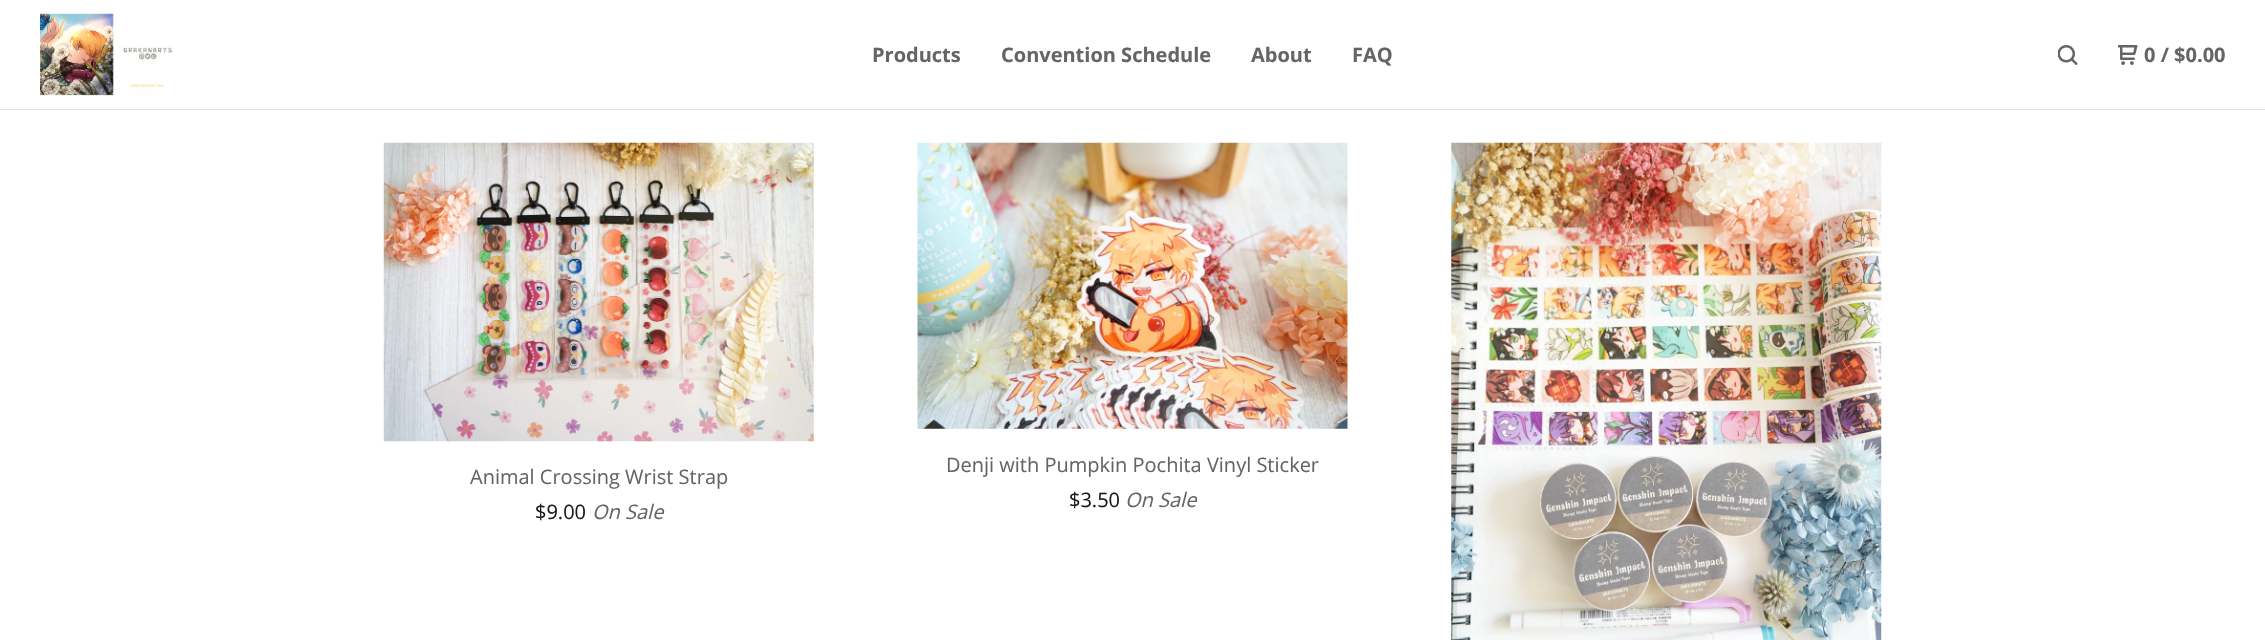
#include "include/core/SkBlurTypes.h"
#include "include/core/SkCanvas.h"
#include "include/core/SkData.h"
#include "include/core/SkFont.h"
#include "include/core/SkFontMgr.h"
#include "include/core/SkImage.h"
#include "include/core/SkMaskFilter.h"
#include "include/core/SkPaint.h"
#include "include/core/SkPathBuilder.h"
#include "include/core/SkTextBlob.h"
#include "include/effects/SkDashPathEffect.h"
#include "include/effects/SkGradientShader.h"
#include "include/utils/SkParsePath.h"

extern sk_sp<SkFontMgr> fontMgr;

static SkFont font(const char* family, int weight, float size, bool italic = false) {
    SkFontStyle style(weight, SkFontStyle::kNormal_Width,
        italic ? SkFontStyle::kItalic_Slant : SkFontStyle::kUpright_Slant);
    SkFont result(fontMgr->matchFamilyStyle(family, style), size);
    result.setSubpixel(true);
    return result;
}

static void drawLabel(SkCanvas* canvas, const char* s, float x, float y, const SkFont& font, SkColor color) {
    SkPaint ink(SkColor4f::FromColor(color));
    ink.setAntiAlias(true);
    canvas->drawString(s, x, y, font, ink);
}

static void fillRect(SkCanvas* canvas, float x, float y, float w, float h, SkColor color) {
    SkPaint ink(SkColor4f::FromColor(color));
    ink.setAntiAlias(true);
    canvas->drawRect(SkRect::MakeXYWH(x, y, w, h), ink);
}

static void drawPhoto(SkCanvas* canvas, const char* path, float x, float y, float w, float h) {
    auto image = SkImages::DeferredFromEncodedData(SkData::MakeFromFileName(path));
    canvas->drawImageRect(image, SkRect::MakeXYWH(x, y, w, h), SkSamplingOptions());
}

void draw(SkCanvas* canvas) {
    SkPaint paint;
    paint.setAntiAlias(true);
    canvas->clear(0xFFFFFFFF);
    fillRect(canvas, 0, 109, 2265, 1, 0xFFE2E2E2);
    drawPhoto(canvas, "assets/img1.png", 40, 13, 133, 83);
    SkFont font1 = font("Open Sans", 700, 20);
    drawLabel(canvas, "Products", 872, 62, font1, 0xFF656565);
    drawLabel(canvas, "Convention Schedule", 1001, 62, font1, 0xFF656565);
    drawLabel(canvas, "About", 1251, 62, font1, 0xFF656565);
    drawLabel(canvas, "FAQ", 1352, 62, font1, 0xFF656565);
    drawPhoto(canvas, "assets/img2.png", 2058, 45, 20, 20);
    drawPhoto(canvas, "assets/img3.png", 2118, 45, 20, 20);
    drawLabel(canvas, "0 / $0.00", 2144, 62, font1, 0xFF656565);
    drawPhoto(canvas, "assets/img4.png", 383, 142, 431, 300);
    SkFont font2 = font("Open Sans", 400, 20);
    drawLabel(canvas, "Animal Crossing Wrist Strap", 470, 484, font2, 0xFF656565);
    drawLabel(canvas, "$9.00", 535, 519, font2, 0xFF1B1B1B);
    SkFont font3 = font("Open Sans", 400, 20, true);
    drawLabel(canvas, "On Sale", 592, 519, font3, 0xFF656565);
    drawPhoto(canvas, "assets/img5.png", 917, 142, 431, 287);
    drawLabel(canvas, "Denji with Pumpkin Pochita Vinyl Sticker", 946, 472, font2, 0xFF656565);
    drawLabel(canvas, "$3.50", 1069, 507, font2, 0xFF1B1B1B);
    drawLabel(canvas, "On Sale", 1125, 507, font3, 0xFF656565);
    drawPhoto(canvas, "assets/img6.png", 1451, 142, 431, 498);
}
